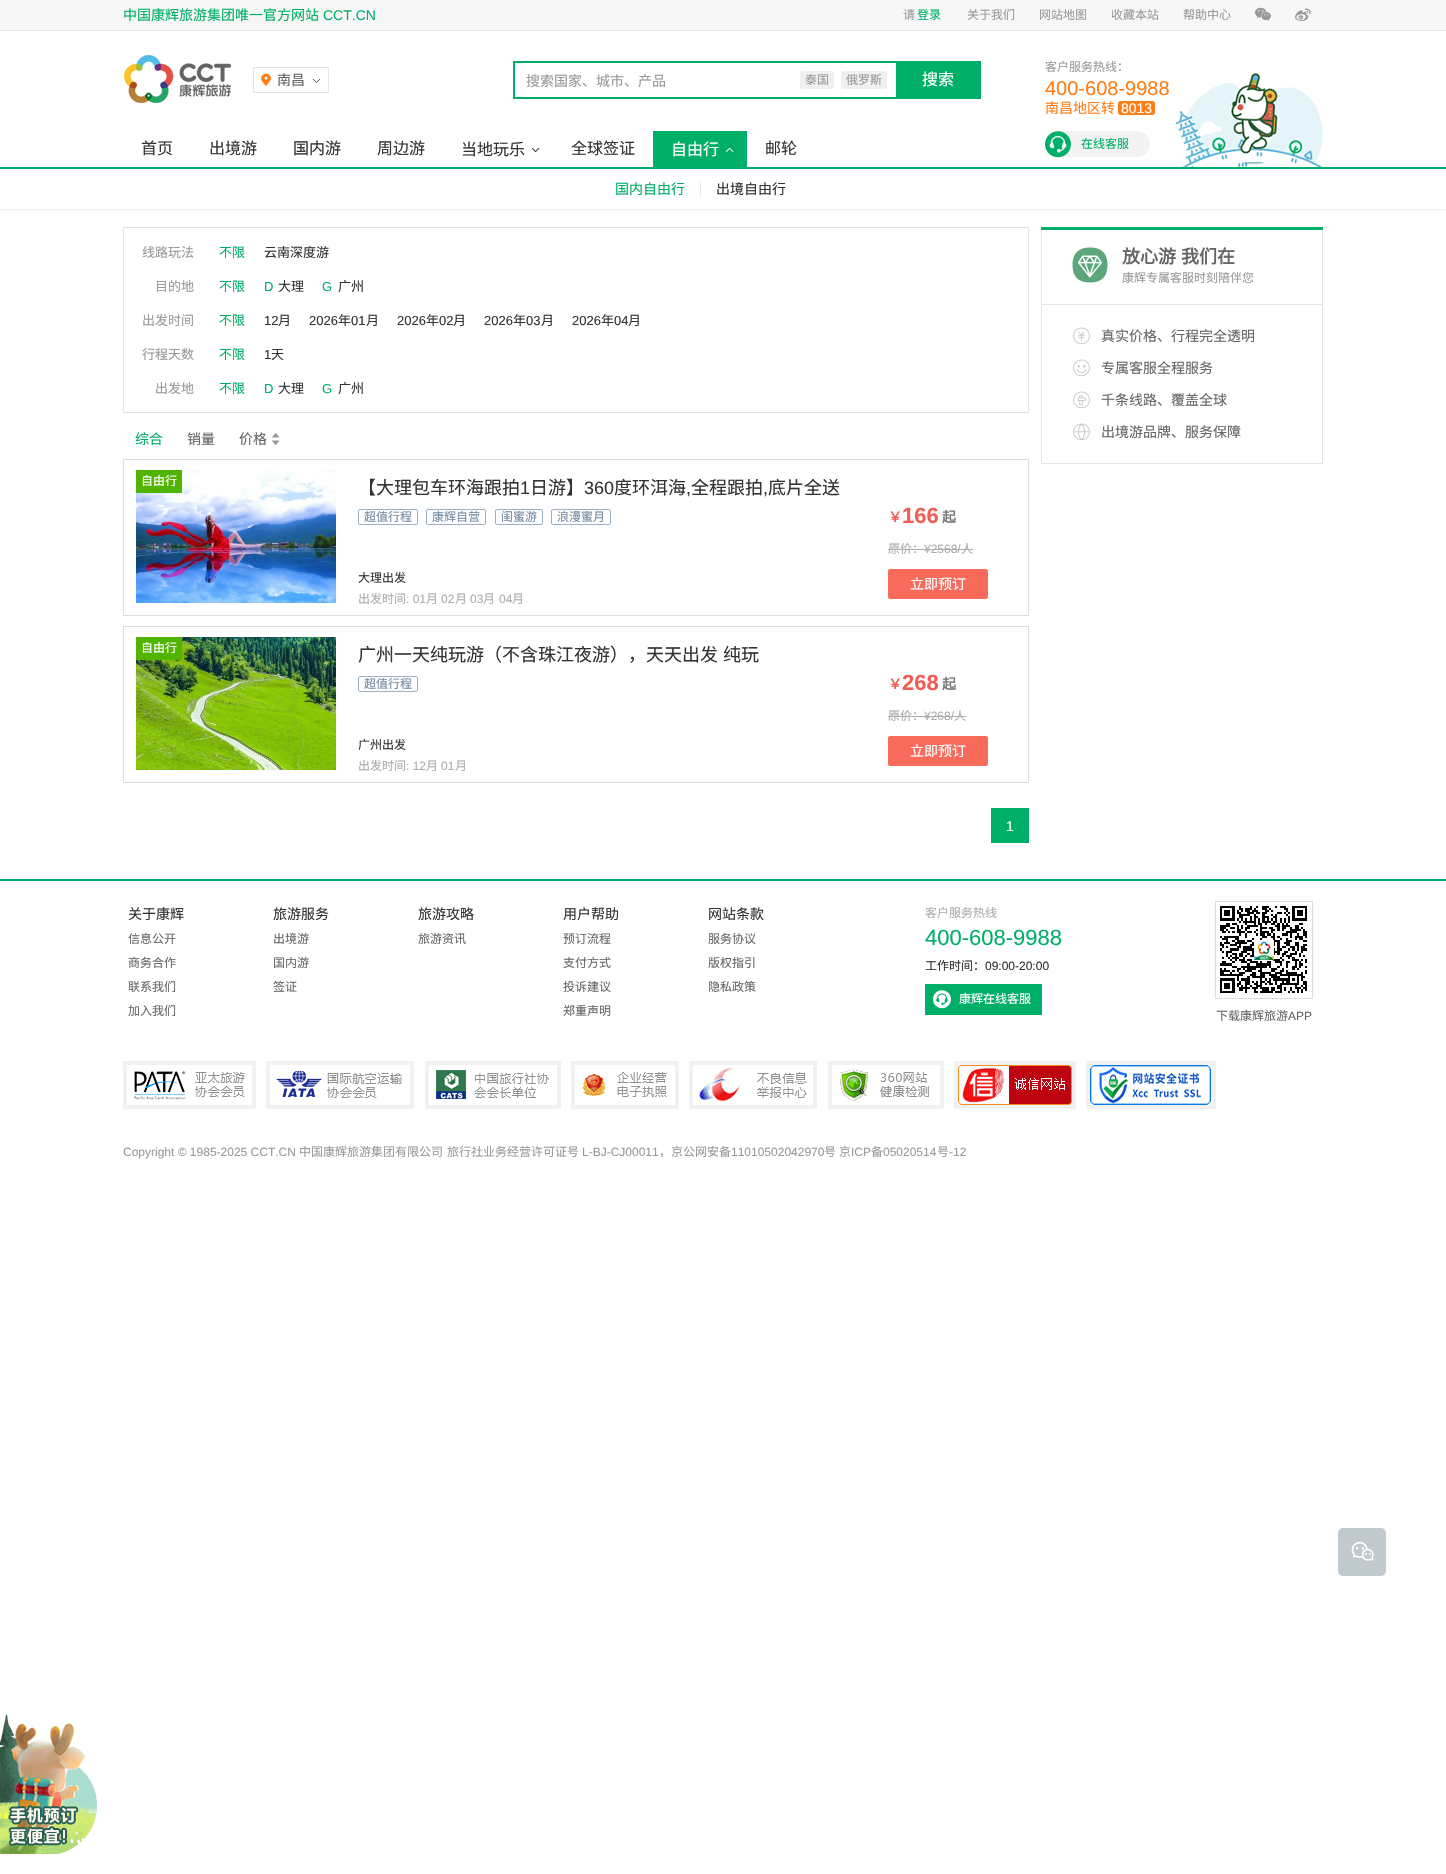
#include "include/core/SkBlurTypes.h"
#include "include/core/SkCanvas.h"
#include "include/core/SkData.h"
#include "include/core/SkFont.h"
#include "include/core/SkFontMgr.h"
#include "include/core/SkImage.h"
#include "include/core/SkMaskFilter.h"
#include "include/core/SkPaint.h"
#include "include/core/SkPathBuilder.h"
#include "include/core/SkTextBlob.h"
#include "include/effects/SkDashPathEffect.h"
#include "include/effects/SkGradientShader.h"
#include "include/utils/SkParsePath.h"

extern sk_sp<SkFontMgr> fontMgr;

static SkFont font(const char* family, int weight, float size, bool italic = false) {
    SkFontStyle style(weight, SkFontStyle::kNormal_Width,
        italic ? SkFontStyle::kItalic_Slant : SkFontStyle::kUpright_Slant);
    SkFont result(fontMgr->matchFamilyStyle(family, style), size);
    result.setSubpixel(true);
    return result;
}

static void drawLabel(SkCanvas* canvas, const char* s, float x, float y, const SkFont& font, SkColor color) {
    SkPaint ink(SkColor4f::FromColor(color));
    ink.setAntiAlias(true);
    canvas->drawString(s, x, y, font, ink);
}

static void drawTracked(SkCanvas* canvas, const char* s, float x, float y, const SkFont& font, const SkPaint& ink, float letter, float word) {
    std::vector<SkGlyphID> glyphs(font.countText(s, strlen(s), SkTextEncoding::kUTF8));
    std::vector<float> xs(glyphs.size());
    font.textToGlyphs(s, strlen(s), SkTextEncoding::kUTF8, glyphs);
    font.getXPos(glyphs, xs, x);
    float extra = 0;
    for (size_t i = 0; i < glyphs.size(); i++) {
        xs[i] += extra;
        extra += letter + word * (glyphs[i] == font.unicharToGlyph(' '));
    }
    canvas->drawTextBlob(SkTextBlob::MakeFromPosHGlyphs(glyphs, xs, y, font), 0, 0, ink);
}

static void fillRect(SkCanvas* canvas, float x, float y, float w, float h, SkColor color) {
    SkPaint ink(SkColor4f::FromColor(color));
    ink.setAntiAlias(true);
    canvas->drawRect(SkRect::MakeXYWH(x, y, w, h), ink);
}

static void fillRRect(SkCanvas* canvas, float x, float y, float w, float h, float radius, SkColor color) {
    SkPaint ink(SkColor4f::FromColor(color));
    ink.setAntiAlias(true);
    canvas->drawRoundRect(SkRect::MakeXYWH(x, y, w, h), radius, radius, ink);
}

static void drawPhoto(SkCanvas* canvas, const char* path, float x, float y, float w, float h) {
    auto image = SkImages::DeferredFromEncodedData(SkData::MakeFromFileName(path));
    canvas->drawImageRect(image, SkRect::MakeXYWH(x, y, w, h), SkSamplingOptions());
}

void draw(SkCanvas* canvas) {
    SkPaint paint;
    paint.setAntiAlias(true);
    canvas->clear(0xFFFFFFFF);
    fillRect(canvas, 0, 0, 1446, 30, 0xFFF7F7F7);
    fillRect(canvas, 0, 30, 1446, 1, 0xFFE5E5E5);
    SkFont font1 = font("Noto Sans CJK SC", 400, 14);
    drawLabel(canvas, "中国康辉旅游集团唯一官方网站", 123, 20, font1, 0xFF00AF67);
    SkFont font2 = font("Liberation Sans", 400, 14);
    drawLabel(canvas, "CCT.CN", 323, 20, font2, 0xFF00AF67);
    SkFont font3 = font("Noto Sans CJK SC", 400, 12);
    drawLabel(canvas, "请", 903, 19, font3, 0xFF999999);
    drawLabel(canvas, "登录", 917, 19, font3, 0xFF00AF67);
    drawLabel(canvas, "关于我们", 967, 19, font3, 0xFF999999);
    drawLabel(canvas, "网站地图", 1039, 19, font3, 0xFF999999);
    drawLabel(canvas, "收藏本站", 1111, 19, font3, 0xFF999999);
    drawLabel(canvas, "帮助中心", 1183, 19, font3, 0xFF999999);
    drawPhoto(canvas, "assets/img1.png", 1255, 7, 16, 14);
    drawPhoto(canvas, "assets/img2.png", 1295, 8, 16, 13);
    drawPhoto(canvas, "assets/img3.png", 124, 55, 107, 48);
    paint.setStroke(true);
    paint.setStrokeWidth(1);
    paint.setColor(0xFFE4E4E4);
    canvas->drawRect(SkRect::MakeXYWH(253.5f, 67.5f, 75, 25), paint);
    drawPhoto(canvas, "assets/img4.png", 261, 73, 10, 13);
    drawLabel(canvas, "南昌", 277, 85, font1, 0xFF666666);
    drawPhoto(canvas, "assets/img5.png", 313, 79, 7, 4);
    fillRect(canvas, 513, 61, 468, 38, 0xFF00AF67);
    fillRect(canvas, 515, 63, 381, 34, 0xFFFFFFFF);
    drawLabel(canvas, "搜索国家、城市、产品", 526, 86, font1, 0xFF999999);
    fillRRect(canvas, 800, 71, 34, 18, 2, 0xFFF0F0F0);
    drawLabel(canvas, "泰国", 805, 84, font3, 0xFF999999);
    fillRRect(canvas, 841, 71, 46, 18, 2, 0xFFF0F0F0);
    drawLabel(canvas, "俄罗斯", 846, 84, font3, 0xFF999999);
    SkFont font4 = font("Noto Sans CJK SC", 400, 16);
    drawLabel(canvas, "搜索", 922, 85, font4, 0xFFFFFFFF);
    drawLabel(canvas, "客户服务热线：", 1045, 71, font3, 0xFF999999);
    SkFont font5 = font("Liberation Sans", 400, 20);
    drawLabel(canvas, "400-608-9988", 1045, 95, font5, 0xFFFF7D13);
    drawLabel(canvas, "南昌地区转", 1045, 113, font1, 0xFFFF7D13);
    fillRRect(canvas, 1118, 101, 37, 14, 3, 0xFFFF7D13);
    drawLabel(canvas, "8013", 1121, 113, font2, 0xFFFFFFFF);
    fillRRect(canvas, 1045, 131, 105, 26, 13, 0xFFF3F3F3);
    drawPhoto(canvas, "assets/img6.png", 1045, 131, 26, 27);
    drawLabel(canvas, "在线客服", 1081, 148, font3, 0xFF00AF67);
    drawLabel(canvas, "首页", 141, 154, font4, 0xFF333333);
    drawLabel(canvas, "出境游", 209, 154, font4, 0xFF333333);
    drawLabel(canvas, "国内游", 293, 154, font4, 0xFF333333);
    drawLabel(canvas, "周边游", 377, 154, font4, 0xFF333333);
    drawLabel(canvas, "当地玩乐", 461, 155, font4, 0xFF333333);
    drawPhoto(canvas, "assets/img7.png", 531, 147, 9, 5);
    drawLabel(canvas, "全球签证", 571, 154, font4, 0xFF333333);
    drawLabel(canvas, "邮轮", 765, 154, font4, 0xFF333333);
    canvas->save();
    canvas->clipRect(SkRect::MakeXYWH(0, 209, 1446, 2));
    paint.setStroke(false);
    paint.setColor(0x14000000);
    paint.setMaskFilter(SkMaskFilter::MakeBlur(kNormal_SkBlurStyle, 1.5f));
    canvas->drawRoundRect(SkRect::MakeXYWH(0, 170, 1446, 40), 1, 1, paint);
    paint.setMaskFilter(nullptr);
    canvas->restore();
    drawPhoto(canvas, "assets/img8.png", 1175, 73, 148, 94);
    fillRect(canvas, 653, 131, 94, 36, 0xFF00AF67);
    drawLabel(canvas, "自由行", 671, 155, font4, 0xFFFFFFFF);
    drawPhoto(canvas, "assets/img9.png", 725, 147, 9, 5);
    drawLabel(canvas, "国内自由行", 615, 194, font1, 0xFF00AF67);
    fillRect(canvas, 700, 181, 1, 16, 0xFFE6E6E6);
    drawLabel(canvas, "出境自由行", 716, 194, font1, 0xFF333333);
    fillRect(canvas, 0, 167, 1446, 2, 0xFF00AF67);
    paint.setStroke(true);
    paint.setColor(0xFFE5E5E5);
    canvas->drawRect(SkRect::MakeXYWH(123.5f, 227.5f, 905, 185), paint);
    SkFont font6 = font("Noto Sans CJK SC", 400, 13);
    drawLabel(canvas, "线路玩法", 142, 257, font6, 0xFF999999);
    drawLabel(canvas, "不限", 219, 257, font6, 0xFF00AF67);
    drawLabel(canvas, "云南深度游", 264, 257, font6, 0xFF333333);
    drawLabel(canvas, "目的地", 155, 291, font6, 0xFF999999);
    drawLabel(canvas, "不限", 219, 291, font6, 0xFF00AF67);
    SkFont font7 = font("Liberation Sans", 400, 13);
    drawLabel(canvas, "D", 264, 291, font7, 0xFF00AF67);
    drawLabel(canvas, "大理", 278, 291, font6, 0xFF333333);
    drawLabel(canvas, "G", 322, 291, font7, 0xFF00AF67);
    drawLabel(canvas, "广州", 338, 291, font6, 0xFF333333);
    drawLabel(canvas, "出发时间", 142, 325, font6, 0xFF999999);
    drawLabel(canvas, "不限", 219, 325, font6, 0xFF00AF67);
    drawLabel(canvas, "12", 264, 325, font7, 0xFF333333);
    drawLabel(canvas, "月", 278, 325, font6, 0xFF333333);
    drawLabel(canvas, "2026", 309, 325, font7, 0xFF333333);
    drawLabel(canvas, "年", 338, 325, font6, 0xFF333333);
    drawLabel(canvas, "01", 351, 325, font7, 0xFF333333);
    drawLabel(canvas, "月", 366, 325, font6, 0xFF333333);
    drawLabel(canvas, "2026", 397, 325, font7, 0xFF333333);
    drawLabel(canvas, "年", 426, 325, font6, 0xFF333333);
    drawLabel(canvas, "02", 439, 325, font7, 0xFF333333);
    drawLabel(canvas, "月", 453, 325, font6, 0xFF333333);
    drawLabel(canvas, "2026", 484, 325, font7, 0xFF333333);
    drawLabel(canvas, "年", 513, 325, font6, 0xFF333333);
    drawLabel(canvas, "03", 526, 325, font7, 0xFF333333);
    drawLabel(canvas, "月", 541, 325, font6, 0xFF333333);
    drawLabel(canvas, "2026", 572, 325, font7, 0xFF333333);
    drawLabel(canvas, "年", 601, 325, font6, 0xFF333333);
    drawLabel(canvas, "04", 614, 325, font7, 0xFF333333);
    drawLabel(canvas, "月", 628, 325, font6, 0xFF333333);
    drawLabel(canvas, "行程天数", 142, 359, font6, 0xFF999999);
    drawLabel(canvas, "不限", 219, 359, font6, 0xFF00AF67);
    drawLabel(canvas, "1", 264, 359, font7, 0xFF333333);
    drawLabel(canvas, "天", 271, 359, font6, 0xFF333333);
    drawLabel(canvas, "出发地", 155, 393, font6, 0xFF999999);
    drawLabel(canvas, "不限", 219, 393, font6, 0xFF00AF67);
    drawLabel(canvas, "D", 264, 393, font7, 0xFF00AF67);
    drawLabel(canvas, "大理", 278, 393, font6, 0xFF333333);
    drawLabel(canvas, "G", 322, 393, font7, 0xFF00AF67);
    drawLabel(canvas, "广州", 338, 393, font6, 0xFF333333);
    drawLabel(canvas, "综合", 135, 444, font1, 0xFF00AF67);
    drawLabel(canvas, "销量", 187, 444, font1, 0xFF666666);
    drawLabel(canvas, "价格", 239, 444, font1, 0xFF666666);
    drawPhoto(canvas, "assets/img10.png", 271, 433, 9, 12);
    paint.setColor(0xFFDDDDDD);
    canvas->drawRect(SkRect::MakeXYWH(123.5f, 459.5f, 905, 156), paint);
    drawPhoto(canvas, "assets/img11.png", 136, 470, 200, 133);
    fillRect(canvas, 136, 470, 46, 23, 0xFF50B400);
    drawLabel(canvas, "自由行", 141, 485, font3, 0xFFFFFFFF);
    SkFont font8 = font("Noto Sans CJK SC", 400, 18);
    drawLabel(canvas, "【大理包车环海跟拍", 358, 494, font8, 0xFF333333);
    SkFont font9 = font("Liberation Sans", 400, 18);
    drawLabel(canvas, "1", 520, 494, font9, 0xFF333333);
    drawLabel(canvas, "日游】", 530, 494, font8, 0xFF333333);
    drawLabel(canvas, "360", 584, 494, font9, 0xFF333333);
    drawLabel(canvas, "度环洱海", 614, 494, font8, 0xFF333333);
    drawLabel(canvas, ",", 686, 494, font9, 0xFF333333);
    drawLabel(canvas, "全程跟拍", 691, 494, font8, 0xFF333333);
    drawLabel(canvas, ",", 763, 494, font9, 0xFF333333);
    drawLabel(canvas, "底片全送", 768, 494, font8, 0xFF333333);
    paint.setColor(0xFF9BB1C6);
    canvas->drawRoundRect(SkRect::MakeXYWH(358.5f, 509.5f, 59, 15), 1.5f, 1.5f, paint);
    drawLabel(canvas, "超值行程", 364, 521, font3, 0xFF738AA0);
    canvas->drawRoundRect(SkRect::MakeXYWH(426.5f, 509.5f, 59, 15), 1.5f, 1.5f, paint);
    drawLabel(canvas, "康辉自营", 432, 521, font3, 0xFF738AA0);
    canvas->drawRoundRect(SkRect::MakeXYWH(495.5f, 509.5f, 47, 15), 1.5f, 1.5f, paint);
    drawLabel(canvas, "闺蜜游", 501, 521, font3, 0xFF738AA0);
    canvas->drawRoundRect(SkRect::MakeXYWH(551.5f, 509.5f, 59, 15), 1.5f, 1.5f, paint);
    drawLabel(canvas, "浪漫蜜月", 557, 521, font3, 0xFF738AA0);
    drawLabel(canvas, "大理出发", 358, 582, font3, 0xFF333333);
    drawLabel(canvas, "出发时间", 358, 603, font3, 0xFFACACAC);
    SkFont font10 = font("Liberation Sans", 400, 12);
    drawLabel(canvas, ": 01", 406, 603, font10, 0xFFACACAC);
    drawLabel(canvas, "月", 426, 603, font3, 0xFFACACAC);
    drawLabel(canvas, "02", 441, 603, font10, 0xFFACACAC);
    drawLabel(canvas, "月", 455, 603, font3, 0xFFACACAC);
    drawLabel(canvas, "03", 470, 603, font10, 0xFFACACAC);
    drawLabel(canvas, "月", 483, 603, font3, 0xFFACACAC);
    drawLabel(canvas, "04", 499, 603, font10, 0xFFACACAC);
    drawLabel(canvas, "月", 512, 603, font3, 0xFFACACAC);
    SkFont font11 = font("Noto Sans CJK SC", 700, 14);
    drawLabel(canvas, "￥", 888, 522, font11, 0xFFF15D53);
    SkFont font12 = font("Liberation Sans", 700, 22);
    drawLabel(canvas, "166", 902, 523, font12, 0xFFF15D53);
    drawLabel(canvas, "起", 942, 522, font11, 0xFF777777);
    drawLabel(canvas, "原价：", 888, 553, font3, 0xFFACACAC);
    drawLabel(canvas, "¥2568/", 924, 553, font10, 0xFFACACAC);
    drawLabel(canvas, "人", 961, 553, font3, 0xFFACACAC);
    fillRect(canvas, 888, 549, 85, 1, 0xFFAEAEAE);
    fillRRect(canvas, 888, 569, 100, 30, 2, 0xFFF86A5C);
    drawLabel(canvas, "立即预订", 910, 589, font1, 0xFFFFFFFF);
    paint.setColor(0xFFDDDDDD);
    canvas->drawRect(SkRect::MakeXYWH(123.5f, 626.5f, 905, 156), paint);
    drawPhoto(canvas, "assets/img12.png", 136, 637, 200, 133);
    fillRect(canvas, 136, 637, 46, 23, 0xFF50B400);
    drawLabel(canvas, "自由行", 141, 652, font3, 0xFFFFFFFF);
    paint.setStroke(false);
    paint.setColor(0xFF333333);
    drawTracked(canvas, "广州一天纯玩游（不含珠江夜游），天天出发 纯玩", 358, 661, font8, paint, 0, 1);
    paint.setStroke(true);
    paint.setColor(0xFF9BB1C6);
    canvas->drawRoundRect(SkRect::MakeXYWH(358.5f, 676.5f, 59, 15), 1.5f, 1.5f, paint);
    drawLabel(canvas, "超值行程", 364, 688, font3, 0xFF738AA0);
    drawLabel(canvas, "广州出发", 358, 749, font3, 0xFF333333);
    drawLabel(canvas, "出发时间", 358, 770, font3, 0xFFACACAC);
    drawLabel(canvas, ": 12", 406, 770, font10, 0xFFACACAC);
    drawLabel(canvas, "月", 426, 770, font3, 0xFFACACAC);
    drawLabel(canvas, "01", 441, 770, font10, 0xFFACACAC);
    drawLabel(canvas, "月", 455, 770, font3, 0xFFACACAC);
    drawLabel(canvas, "￥", 888, 689, font11, 0xFFF15D53);
    drawLabel(canvas, "268", 902, 690, font12, 0xFFF15D53);
    drawLabel(canvas, "起", 942, 689, font11, 0xFF777777);
    drawLabel(canvas, "原价：", 888, 720, font3, 0xFFACACAC);
    drawLabel(canvas, "¥268/", 924, 720, font10, 0xFFACACAC);
    drawLabel(canvas, "人", 954, 720, font3, 0xFFACACAC);
    fillRect(canvas, 888, 716, 78, 1, 0xFFAEAEAE);
    fillRRect(canvas, 888, 736, 100, 30, 2, 0xFFF86A5C);
    drawLabel(canvas, "立即预订", 910, 756, font1, 0xFFFFFFFF);
    fillRect(canvas, 991, 808, 38, 35, 0xFF00AF67);
    drawLabel(canvas, "1", 1006, 831, font2, 0xFFFFFFFF);
    fillRect(canvas, 1041, 227, 282, 3, 0xFF00AF67);
    fillRect(canvas, 1322, 230, 1, 234, 0xFFE5E5E5);
    fillRect(canvas, 1041, 304, 282, 1, 0xFFE5E5E5);
    fillRect(canvas, 1041, 230, 1, 75, 0xFFE5E5E5);
    drawPhoto(canvas, "assets/img13.png", 1072, 247, 36, 36);
    SkFont font13 = font("Noto Sans CJK SC", 700, 18);
    paint.setStroke(false);
    paint.setColor(0xFF666666);
    drawTracked(canvas, "放心游 我们在", 1122, 263, font13, paint, 0, 1);
    drawLabel(canvas, "康辉专属客服时刻陪伴您", 1122, 282, font3, 0xFF999999);
    fillRect(canvas, 1041, 463, 282, 1, 0xFFE5E5E5);
    fillRect(canvas, 1041, 305, 1, 159, 0xFFE5E5E5);
    drawPhoto(canvas, "assets/img14.png", 1073, 327, 17, 18);
    drawLabel(canvas, "真实价格、行程完全透明", 1101, 341, font1, 0xFF666666);
    drawPhoto(canvas, "assets/img15.png", 1073, 359, 17, 18);
    drawLabel(canvas, "专属客服全程服务", 1101, 373, font1, 0xFF666666);
    drawPhoto(canvas, "assets/img16.png", 1073, 391, 17, 18);
    drawLabel(canvas, "千条线路、覆盖全球", 1101, 405, font1, 0xFF666666);
    drawPhoto(canvas, "assets/img17.png", 1073, 423, 17, 18);
    drawLabel(canvas, "出境游品牌、服务保障", 1101, 437, font1, 0xFF666666);
    fillRect(canvas, 0, 879, 1446, 2, 0xFF00AF67);
    drawLabel(canvas, "关于康辉", 128, 919, font1, 0xFF333333);
    drawLabel(canvas, "信息公开", 128, 943, font3, 0xFF666666);
    drawLabel(canvas, "商务合作", 128, 967, font3, 0xFF666666);
    drawLabel(canvas, "联系我们", 128, 991, font3, 0xFF666666);
    drawLabel(canvas, "加入我们", 128, 1015, font3, 0xFF666666);
    drawLabel(canvas, "旅游服务", 273, 919, font1, 0xFF333333);
    drawLabel(canvas, "出境游", 273, 943, font3, 0xFF666666);
    drawLabel(canvas, "国内游", 273, 967, font3, 0xFF666666);
    drawLabel(canvas, "签证", 273, 991, font3, 0xFF666666);
    drawLabel(canvas, "旅游攻略", 418, 919, font1, 0xFF333333);
    drawLabel(canvas, "旅游资讯", 418, 943, font3, 0xFF666666);
    drawLabel(canvas, "用户帮助", 563, 919, font1, 0xFF333333);
    drawLabel(canvas, "预订流程", 563, 943, font3, 0xFF666666);
    drawLabel(canvas, "支付方式", 563, 967, font3, 0xFF666666);
    drawLabel(canvas, "投诉建议", 563, 991, font3, 0xFF666666);
    drawLabel(canvas, "郑重声明", 563, 1015, font3, 0xFF666666);
    drawLabel(canvas, "网站条款", 708, 919, font1, 0xFF333333);
    drawLabel(canvas, "服务协议", 708, 943, font3, 0xFF666666);
    drawLabel(canvas, "版权指引", 708, 967, font3, 0xFF666666);
    drawLabel(canvas, "隐私政策", 708, 991, font3, 0xFF666666);
    drawLabel(canvas, "客户服务热线", 925, 917, font3, 0xFFACACAC);
    SkFont font14 = font("Liberation Sans", 400, 22);
    drawLabel(canvas, "400-608-9988", 925, 945, font14, 0xFF00AF67);
    drawLabel(canvas, "工作时间：", 925, 970, font3, 0xFF333333);
    drawLabel(canvas, "09:00-20:00", 985, 970, font10, 0xFF333333);
    fillRect(canvas, 925, 984, 117, 31, 0xFF00AF67);
    drawPhoto(canvas, "assets/img18.png", 933, 990, 18, 19);
    drawLabel(canvas, "康辉在线客服", 959, 1003, font3, 0xFFFFFFFF);
    paint.setStroke(true);
    paint.setColor(0xFFDDDDDD);
    canvas->drawRect(SkRect::MakeXYWH(1215.5f, 901.5f, 97, 97), paint);
    drawPhoto(canvas, "assets/img19.png", 1220, 906, 87, 87);
    drawLabel(canvas, "下载康辉旅游", 1216, 1020, font3, 0xFF666666);
    drawLabel(canvas, "APP", 1288, 1020, font10, 0xFF666666);
    drawPhoto(canvas, "assets/img20.png", 127, 1065, 118, 35);
    paint.setStrokeWidth(4);
    paint.setColor(0xFFF1F1F1);
    canvas->drawRect(SkRect::MakeXYWH(125, 1063, 129, 44), paint);
    drawPhoto(canvas, "assets/img21.png", 276, 1071, 126, 27);
    canvas->drawRect(SkRect::MakeXYWH(268, 1063, 144, 44), paint);
    drawPhoto(canvas, "assets/img22.png", 436, 1070, 113, 29);
    canvas->drawRect(SkRect::MakeXYWH(427, 1063, 132, 44), paint);
    drawPhoto(canvas, "assets/img23.png", 582, 1072, 85, 33);
    canvas->drawRect(SkRect::MakeXYWH(573, 1063, 104, 44), paint);
    drawPhoto(canvas, "assets/img24.png", 698, 1067, 109, 35);
    canvas->drawRect(SkRect::MakeXYWH(691, 1063, 124, 44), paint);
    drawPhoto(canvas, "assets/img25.png", 832, 1065, 108, 40);
    canvas->drawRect(SkRect::MakeXYWH(830, 1063, 112, 44), paint);
    drawPhoto(canvas, "assets/img26.png", 958, 1065, 114, 40);
    canvas->drawRect(SkRect::MakeXYWH(956, 1063, 118, 44), paint);
    drawPhoto(canvas, "assets/img27.png", 1090, 1065, 121, 40);
    canvas->drawRect(SkRect::MakeXYWH(1088, 1063, 126, 44), paint);
    drawLabel(canvas, "Copyright © 1985-2025 CCT.CN", 123, 1156, font10, 0xFF999999);
    drawLabel(canvas, "中国康辉旅游集团有限公司", 299, 1156, font3, 0xFF999999);
    drawLabel(canvas, "旅行社业务经营许可证号", 447, 1156, font3, 0xFF999999);
    drawLabel(canvas, "L-BJ-CJ00011", 582, 1156, font10, 0xFF999999);
    drawLabel(canvas, "，京公网安备", 659, 1156, font3, 0xFF999999);
    drawLabel(canvas, "11010502042970", 731, 1156, font10, 0xFF999999);
    drawLabel(canvas, "号", 824, 1156, font3, 0xFF999999);
    drawLabel(canvas, "京", 839, 1156, font3, 0xFF999999);
    drawLabel(canvas, "ICP", 851, 1156, font10, 0xFF999999);
    drawLabel(canvas, "备", 871, 1156, font3, 0xFF999999);
    drawLabel(canvas, "05020514", 883, 1156, font10, 0xFF999999);
    drawLabel(canvas, "号", 937, 1156, font3, 0xFF999999);
    drawLabel(canvas, "-12", 949, 1156, font10, 0xFF999999);
    fillRRect(canvas, 1338, 1528, 48, 48, 5, 0xFFC1CACF);
    drawPhoto(canvas, "assets/img28.png", 1351, 1541, 23, 20);
    drawPhoto(canvas, "assets/img29.png", 0, 1714, 97, 140);
}
